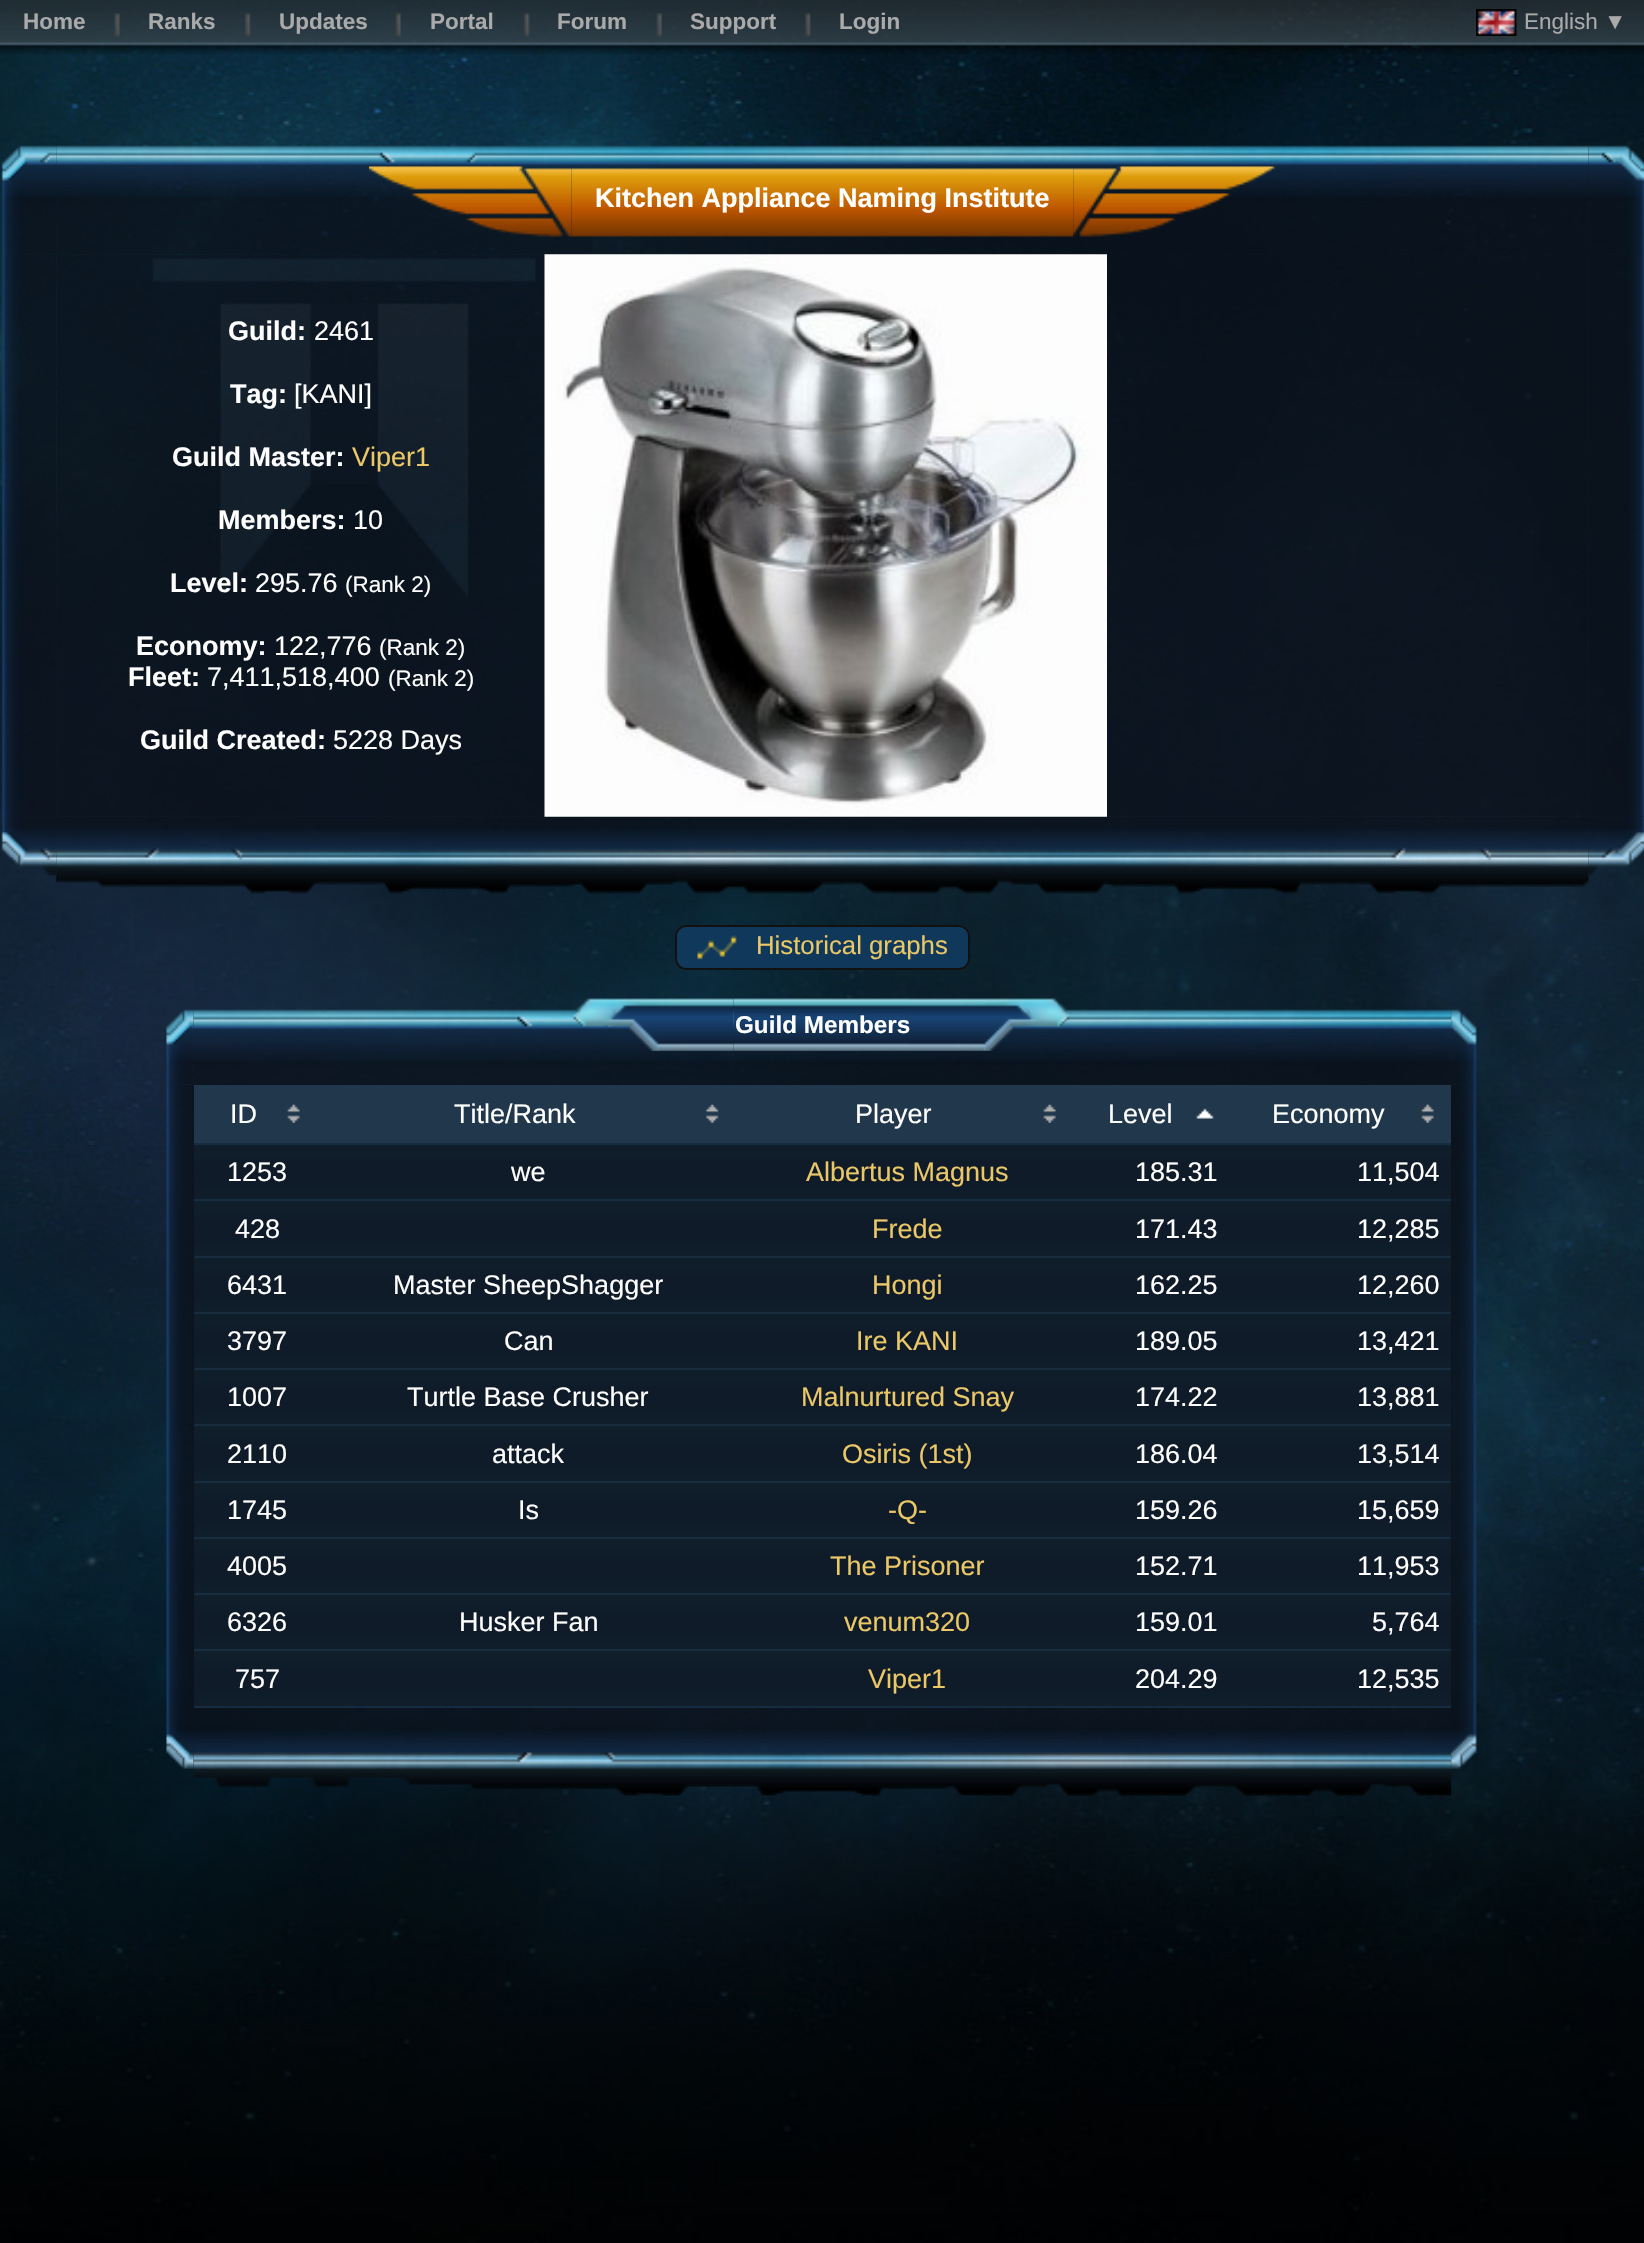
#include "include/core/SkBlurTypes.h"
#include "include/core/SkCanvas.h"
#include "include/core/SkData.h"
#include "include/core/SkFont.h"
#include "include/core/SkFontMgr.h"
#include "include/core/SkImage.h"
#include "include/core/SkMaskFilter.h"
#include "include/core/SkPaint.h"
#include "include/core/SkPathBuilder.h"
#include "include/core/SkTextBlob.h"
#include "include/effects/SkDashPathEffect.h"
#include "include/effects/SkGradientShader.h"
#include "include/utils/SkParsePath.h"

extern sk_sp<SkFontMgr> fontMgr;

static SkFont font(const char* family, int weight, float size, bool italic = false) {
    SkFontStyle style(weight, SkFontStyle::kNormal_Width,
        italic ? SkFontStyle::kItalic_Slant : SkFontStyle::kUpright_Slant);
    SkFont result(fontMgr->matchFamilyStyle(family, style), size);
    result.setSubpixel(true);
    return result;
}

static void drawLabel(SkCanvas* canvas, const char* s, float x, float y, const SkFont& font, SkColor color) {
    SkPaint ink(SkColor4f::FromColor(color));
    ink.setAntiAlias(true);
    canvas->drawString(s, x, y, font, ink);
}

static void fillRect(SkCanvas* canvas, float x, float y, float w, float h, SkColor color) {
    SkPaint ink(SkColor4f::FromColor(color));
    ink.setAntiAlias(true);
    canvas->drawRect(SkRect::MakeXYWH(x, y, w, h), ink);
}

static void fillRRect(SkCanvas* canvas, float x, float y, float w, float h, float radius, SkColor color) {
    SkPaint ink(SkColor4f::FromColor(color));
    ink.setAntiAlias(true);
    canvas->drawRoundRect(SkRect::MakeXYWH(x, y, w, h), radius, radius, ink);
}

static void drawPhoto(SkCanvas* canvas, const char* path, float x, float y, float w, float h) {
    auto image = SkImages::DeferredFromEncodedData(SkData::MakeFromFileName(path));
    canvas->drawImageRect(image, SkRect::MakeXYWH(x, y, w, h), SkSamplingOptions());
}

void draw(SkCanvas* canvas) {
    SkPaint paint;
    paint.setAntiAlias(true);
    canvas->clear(0xFFFFFFFF);
    drawPhoto(canvas, "assets/img1.png", 0, 0, 1644, 2243);
    drawPhoto(canvas, "assets/img2.png", 0, 0, 1644, 54);
    SkFont font1 = font("Liberation Sans", 700, 22.5f);
    drawLabel(canvas, "Home", 23, 29, font1, 0xFFAAAAAA);
    drawPhoto(canvas, "assets/img3.png", 114, 13, 6, 24);
    drawLabel(canvas, "Ranks", 148, 29, font1, 0xFFAAAAAA);
    drawPhoto(canvas, "assets/img4.png", 245, 13, 6, 24);
    drawLabel(canvas, "Updates", 279, 29, font1, 0xFFAAAAAA);
    drawPhoto(canvas, "assets/img5.png", 395, 13, 6, 24);
    drawLabel(canvas, "Portal", 430, 29, font1, 0xFFAAAAAA);
    drawPhoto(canvas, "assets/img6.png", 524, 13, 6, 24);
    drawLabel(canvas, "Forum", 557, 29, font1, 0xFFAAAAAA);
    drawPhoto(canvas, "assets/img7.png", 656, 13, 6, 24);
    drawLabel(canvas, "Support", 690, 29, font1, 0xFFAAAAAA);
    drawPhoto(canvas, "assets/img8.png", 805, 13, 6, 24);
    drawLabel(canvas, "Login", 839, 29, font1, 0xFFAAAAAA);
    drawPhoto(canvas, "assets/img9.png", 1476, 9, 41, 27);
    SkFont font2 = font("Liberation Sans", 400, 22.5f);
    drawLabel(canvas, "English ▼", 1524, 29, font2, 0xFFAAAAAA);
    drawPhoto(canvas, "assets/img10.png", 1, 145, 56, 110);
    drawPhoto(canvas, "assets/img11.png", 56, 145, 1533, 110);
    drawPhoto(canvas, "assets/img12.png", 369, 166, 203, 71);
    drawPhoto(canvas, "assets/img13.png", 571, 168, 503, 69);
    SkFont font3 = font("Liberation Sans", 700, 27);
    drawLabel(canvas, "Kitchen Appliance Naming Institute", 595, 207, font3, 0xFFFFFFFF);
    drawPhoto(canvas, "assets/img14.png", 1073, 166, 203, 71);
    drawPhoto(canvas, "assets/img15.png", 1588, 145, 56, 110);
    drawPhoto(canvas, "assets/img16.png", 1, 254, 56, 563);
    drawPhoto(canvas, "assets/img17.png", 56, 254, 1533, 563);
    drawLabel(canvas, "Guild:", 228, 340, font3, 0xFFFFFFFF);
    SkFont font4 = font("Liberation Sans", 400, 27);
    drawLabel(canvas, "2461", 314, 340, font4, 0xFFFFFFFF);
    drawLabel(canvas, "Tag:", 230, 403, font3, 0xFFFFFFFF);
    drawLabel(canvas, "[KANI]", 294, 403, font4, 0xFFFFFFFF);
    drawLabel(canvas, "Guild Master:", 172, 466, font3, 0xFFFFFFFF);
    drawLabel(canvas, "Viper1", 352, 466, font4, 0xFFEAC767);
    drawLabel(canvas, "Members:", 218, 529, font3, 0xFFFFFFFF);
    drawLabel(canvas, "10", 353, 529, font4, 0xFFFFFFFF);
    drawLabel(canvas, "Level:", 170, 592, font3, 0xFFFFFFFF);
    drawLabel(canvas, "295.76", 255, 592, font4, 0xFFFFFFFF);
    drawLabel(canvas, "(Rank 2)", 345, 592, font2, 0xFFFFFFFF);
    drawLabel(canvas, "Economy:", 136, 655, font3, 0xFFFFFFFF);
    drawLabel(canvas, "122,776", 274, 655, font4, 0xFFFFFFFF);
    drawLabel(canvas, "(Rank 2)", 379, 655, font2, 0xFFFFFFFF);
    drawLabel(canvas, "Fleet:", 128, 686, font3, 0xFFFFFFFF);
    drawLabel(canvas, "7,411,518,400", 207, 686, font4, 0xFFFFFFFF);
    drawLabel(canvas, "(Rank 2)", 388, 686, font2, 0xFFFFFFFF);
    drawLabel(canvas, "Guild Created:", 140, 749, font3, 0xFFFFFFFF);
    drawLabel(canvas, "5228 Days", 333, 749, font4, 0xFFFFFFFF);
    drawPhoto(canvas, "assets/img18.png", 544, 254, 563, 563);
    drawPhoto(canvas, "assets/img19.png", 1588, 254, 56, 563);
    drawPhoto(canvas, "assets/img20.png", 1, 816, 56, 60);
    drawPhoto(canvas, "assets/img21.png", 56, 817, 1533, 77);
    drawPhoto(canvas, "assets/img22.png", 1588, 817, 56, 59);
    fillRRect(canvas, 675, 925, 295, 45, 11, 0xFF10385A);
    drawPhoto(canvas, "assets/img23.png", 697, 935, 40, 25);
    paint.setStroke(true);
    paint.setStrokeWidth(2);
    paint.setColor(0xFF111111);
    canvas->drawRoundRect(SkRect::MakeXYWH(676, 926, 293, 43), 10, 10, paint);
    SkFont font5 = font("Liberation Sans", 400, 25.75f);
    drawLabel(canvas, "Historical graphs", 756, 954, font5, 0xFFEAC767);
    drawPhoto(canvas, "assets/img24.png", 166, 1009, 28, 76);
    drawPhoto(canvas, "assets/img25.png", 193, 1009, 1259, 76);
    drawPhoto(canvas, "assets/img26.png", 573, 998, 161, 53);
    drawPhoto(canvas, "assets/img27.png", 733, 998, 176, 53);
    drawPhoto(canvas, "assets/img28.png", 909, 998, 161, 53);
    SkFont font6 = font("Liberation Sans", 700, 24.25f);
    drawLabel(canvas, "Guild Members", 735, 1033, font6, 0xFFFFFFFF);
    drawPhoto(canvas, "assets/img29.png", 1451, 1009, 26, 76);
    drawPhoto(canvas, "assets/img30.png", 166, 1084, 28, 635);
    fillRect(canvas, 193, 1084, 1259, 635, 0xCC0A101A);
    fillRect(canvas, 194, 1085, 1257, 58, 0xFF20374C);
    drawPhoto(canvas, "assets/img31.png", 287, 1104, 13, 19);
    drawLabel(canvas, "ID", 230, 1123, font4, 0xFFFFFFFF);
    drawPhoto(canvas, "assets/img32.png", 706, 1104, 13, 19);
    drawLabel(canvas, "Title/Rank", 454, 1123, font4, 0xFFFFFFFF);
    drawPhoto(canvas, "assets/img31.png", 1043, 1104, 13, 19);
    drawLabel(canvas, "Player", 855, 1123, font4, 0xFFFFFFFF);
    drawPhoto(canvas, "assets/img33.png", 1196, 1108, 18, 11);
    drawLabel(canvas, "Level", 1108, 1123, font4, 0xFFFFFFFF);
    drawPhoto(canvas, "assets/img34.png", 1421, 1104, 13, 19);
    drawLabel(canvas, "Economy", 1272, 1123, font4, 0xFFFFFFFF);
    paint.setStroke(false);
    {
        const SkColor colors[] = {0xFF101F2C, 0xFF0F1B28, 0xFF0F1B28, 0xFF101F2C};
        const float stops[] = {0, 0.33f, 0.67f, 1};
        const SkPoint ends[] = {{822, 1145}, {822, 1202}};
        paint.setShader(SkGradientShader::MakeLinear(ends, colors, stops, 4, SkTileMode::kClamp));
        paint.setAlpha(255);
    }
    canvas->drawRect(SkRect::MakeXYWH(194, 1145, 1257, 57), paint);
    drawLabel(canvas, "1253", 227, 1181, font4, 0xFFFFFFFF);
    drawLabel(canvas, "we", 511, 1181, font4, 0xFFFFFFFF);
    drawLabel(canvas, "Albertus Magnus", 806, 1181, font4, 0xFFEAC767);
    drawLabel(canvas, "185.31", 1135, 1181, font4, 0xFFFFFFFF);
    fillRect(canvas, 194, 1143, 1257, 2, 0xFF172C3E);
    drawLabel(canvas, "11,504", 1357, 1181, font4, 0xFFFFFFFF);
    {
        const SkColor colors[] = {0xFF101F2C, 0xFF0F1B28, 0xFF0F1B28, 0xFF101F2C};
        const float stops[] = {0, 0.33f, 0.67f, 1};
        const SkPoint ends[] = {{822, 1202}, {822, 1258}};
        paint.setShader(SkGradientShader::MakeLinear(ends, colors, stops, 4, SkTileMode::kClamp));
        paint.setAlpha(255);
    }
    canvas->drawRect(SkRect::MakeXYWH(194, 1202, 1257, 54), paint);
    drawLabel(canvas, "428", 235, 1238, font4, 0xFFFFFFFF);
    drawLabel(canvas, "Frede", 872, 1238, font4, 0xFFEAC767);
    drawLabel(canvas, "171.43", 1135, 1238, font4, 0xFFFFFFFF);
    fillRect(canvas, 194, 1199, 1257, 2, 0xFF172C3E);
    drawLabel(canvas, "12,285", 1357, 1238, font4, 0xFFFFFFFF);
    {
        const SkColor colors[] = {0xFF101F2C, 0xFF0F1B28, 0xFF0F1B28, 0xFF101F2C};
        const float stops[] = {0, 0.33f, 0.67f, 1};
        const SkPoint ends[] = {{822, 1258}, {822, 1314}};
        paint.setShader(SkGradientShader::MakeLinear(ends, colors, stops, 4, SkTileMode::kClamp));
        paint.setAlpha(255);
    }
    canvas->drawRect(SkRect::MakeXYWH(194, 1258, 1257, 54), paint);
    drawLabel(canvas, "6431", 227, 1294, font4, 0xFFFFFFFF);
    drawLabel(canvas, "Master SheepShagger", 393, 1294, font4, 0xFFFFFFFF);
    drawLabel(canvas, "Hongi", 872, 1294, font4, 0xFFEAC767);
    drawLabel(canvas, "162.25", 1135, 1294, font4, 0xFFFFFFFF);
    fillRect(canvas, 194, 1256, 1257, 2, 0xFF172C3E);
    drawLabel(canvas, "12,260", 1357, 1294, font4, 0xFFFFFFFF);
    {
        const SkColor colors[] = {0xFF101F2C, 0xFF0F1B28, 0xFF0F1B28, 0xFF101F2C};
        const float stops[] = {0, 0.33f, 0.67f, 1};
        const SkPoint ends[] = {{822, 1314}, {822, 1370}};
        paint.setShader(SkGradientShader::MakeLinear(ends, colors, stops, 4, SkTileMode::kClamp));
        paint.setAlpha(255);
    }
    canvas->drawRect(SkRect::MakeXYWH(194, 1314, 1257, 54), paint);
    drawLabel(canvas, "3797", 227, 1350, font4, 0xFFFFFFFF);
    drawLabel(canvas, "Can", 504, 1350, font4, 0xFFFFFFFF);
    drawLabel(canvas, "Ire KANI", 856, 1350, font4, 0xFFEAC767);
    drawLabel(canvas, "189.05", 1135, 1350, font4, 0xFFFFFFFF);
    fillRect(canvas, 194, 1312, 1257, 2, 0xFF172C3E);
    drawLabel(canvas, "13,421", 1357, 1350, font4, 0xFFFFFFFF);
    {
        const SkColor colors[] = {0xFF101F2C, 0xFF0F1B28, 0xFF0F1B28, 0xFF101F2C};
        const float stops[] = {0, 0.33f, 0.67f, 1};
        const SkPoint ends[] = {{822, 1370}, {822, 1427}};
        paint.setShader(SkGradientShader::MakeLinear(ends, colors, stops, 4, SkTileMode::kClamp));
        paint.setAlpha(255);
    }
    canvas->drawRect(SkRect::MakeXYWH(194, 1370, 1257, 57), paint);
    drawLabel(canvas, "1007", 227, 1406, font4, 0xFFFFFFFF);
    drawLabel(canvas, "Turtle Base Crusher", 407, 1406, font4, 0xFFFFFFFF);
    drawLabel(canvas, "Malnurtured Snay", 801, 1406, font4, 0xFFEAC767);
    drawLabel(canvas, "174.22", 1135, 1406, font4, 0xFFFFFFFF);
    fillRect(canvas, 194, 1368, 1257, 2, 0xFF172C3E);
    drawLabel(canvas, "13,881", 1357, 1406, font4, 0xFFFFFFFF);
    {
        const SkColor colors[] = {0xFF101F2C, 0xFF0F1B28, 0xFF0F1B28, 0xFF101F2C};
        const float stops[] = {0, 0.33f, 0.67f, 1};
        const SkPoint ends[] = {{822, 1427}, {822, 1483}};
        paint.setShader(SkGradientShader::MakeLinear(ends, colors, stops, 4, SkTileMode::kClamp));
        paint.setAlpha(255);
    }
    canvas->drawRect(SkRect::MakeXYWH(194, 1427, 1257, 54), paint);
    drawLabel(canvas, "2110", 227, 1463, font4, 0xFFFFFFFF);
    drawLabel(canvas, "attack", 492, 1463, font4, 0xFFFFFFFF);
    drawLabel(canvas, "Osiris (1st)", 842, 1463, font4, 0xFFEAC767);
    drawLabel(canvas, "186.04", 1135, 1463, font4, 0xFFFFFFFF);
    fillRect(canvas, 194, 1424, 1257, 2, 0xFF172C3E);
    drawLabel(canvas, "13,514", 1357, 1463, font4, 0xFFFFFFFF);
    {
        const SkColor colors[] = {0xFF101F2C, 0xFF0F1B28, 0xFF0F1B28, 0xFF101F2C};
        const float stops[] = {0, 0.33f, 0.67f, 1};
        const SkPoint ends[] = {{822, 1483}, {822, 1539}};
        paint.setShader(SkGradientShader::MakeLinear(ends, colors, stops, 4, SkTileMode::kClamp));
        paint.setAlpha(255);
    }
    canvas->drawRect(SkRect::MakeXYWH(194, 1483, 1257, 54), paint);
    drawLabel(canvas, "1745", 227, 1519, font4, 0xFFFFFFFF);
    drawLabel(canvas, "Is", 518, 1519, font4, 0xFFFFFFFF);
    drawLabel(canvas, "-Q-", 888, 1519, font4, 0xFFEAC767);
    drawLabel(canvas, "159.26", 1135, 1519, font4, 0xFFFFFFFF);
    fillRect(canvas, 194, 1481, 1257, 2, 0xFF172C3E);
    drawLabel(canvas, "15,659", 1357, 1519, font4, 0xFFFFFFFF);
    {
        const SkColor colors[] = {0xFF101F2C, 0xFF0F1B28, 0xFF0F1B28, 0xFF101F2C};
        const float stops[] = {0, 0.33f, 0.67f, 1};
        const SkPoint ends[] = {{822, 1539}, {822, 1595}};
        paint.setShader(SkGradientShader::MakeLinear(ends, colors, stops, 4, SkTileMode::kClamp));
        paint.setAlpha(255);
    }
    canvas->drawRect(SkRect::MakeXYWH(194, 1539, 1257, 54), paint);
    drawLabel(canvas, "4005", 227, 1575, font4, 0xFFFFFFFF);
    drawLabel(canvas, "The Prisoner", 830, 1575, font4, 0xFFEAC767);
    drawLabel(canvas, "152.71", 1135, 1575, font4, 0xFFFFFFFF);
    fillRect(canvas, 194, 1537, 1257, 2, 0xFF172C3E);
    drawLabel(canvas, "11,953", 1357, 1575, font4, 0xFFFFFFFF);
    {
        const SkColor colors[] = {0xFF101F2C, 0xFF0F1B28, 0xFF0F1B28, 0xFF101F2C};
        const float stops[] = {0, 0.33f, 0.67f, 1};
        const SkPoint ends[] = {{822, 1595}, {822, 1652}};
        paint.setShader(SkGradientShader::MakeLinear(ends, colors, stops, 4, SkTileMode::kClamp));
        paint.setAlpha(255);
    }
    canvas->drawRect(SkRect::MakeXYWH(194, 1595, 1257, 57), paint);
    drawLabel(canvas, "6326", 227, 1631, font4, 0xFFFFFFFF);
    drawLabel(canvas, "Husker Fan", 459, 1631, font4, 0xFFFFFFFF);
    drawLabel(canvas, "venum320", 844, 1631, font4, 0xFFEAC767);
    drawLabel(canvas, "159.01", 1135, 1631, font4, 0xFFFFFFFF);
    fillRect(canvas, 194, 1593, 1257, 2, 0xFF172C3E);
    drawLabel(canvas, "5,764", 1372, 1631, font4, 0xFFFFFFFF);
    {
        const SkColor colors[] = {0xFF101F2C, 0xFF0F1B28, 0xFF0F1B28, 0xFF101F2C};
        const float stops[] = {0, 0.33f, 0.67f, 1};
        const SkPoint ends[] = {{822, 1652}, {822, 1708}};
        paint.setShader(SkGradientShader::MakeLinear(ends, colors, stops, 4, SkTileMode::kClamp));
        paint.setAlpha(255);
    }
    canvas->drawRect(SkRect::MakeXYWH(194, 1652, 1257, 54), paint);
    drawLabel(canvas, "757", 235, 1688, font4, 0xFFFFFFFF);
    drawLabel(canvas, "Viper1", 868, 1688, font4, 0xFFEAC767);
    drawLabel(canvas, "204.29", 1135, 1688, font4, 0xFFFFFFFF);
    fillRect(canvas, 194, 1649, 1257, 2, 0xFF172C3E);
    fillRect(canvas, 194, 1706, 1257, 2, 0xFF172C3E);
    drawLabel(canvas, "12,535", 1357, 1688, font4, 0xFFFFFFFF);
    drawPhoto(canvas, "assets/img35.png", 1451, 1084, 26, 635);
    drawPhoto(canvas, "assets/img36.png", 166, 1719, 28, 50);
    drawPhoto(canvas, "assets/img37.png", 193, 1719, 1259, 77);
    drawPhoto(canvas, "assets/img38.png", 1451, 1719, 26, 50);
}
